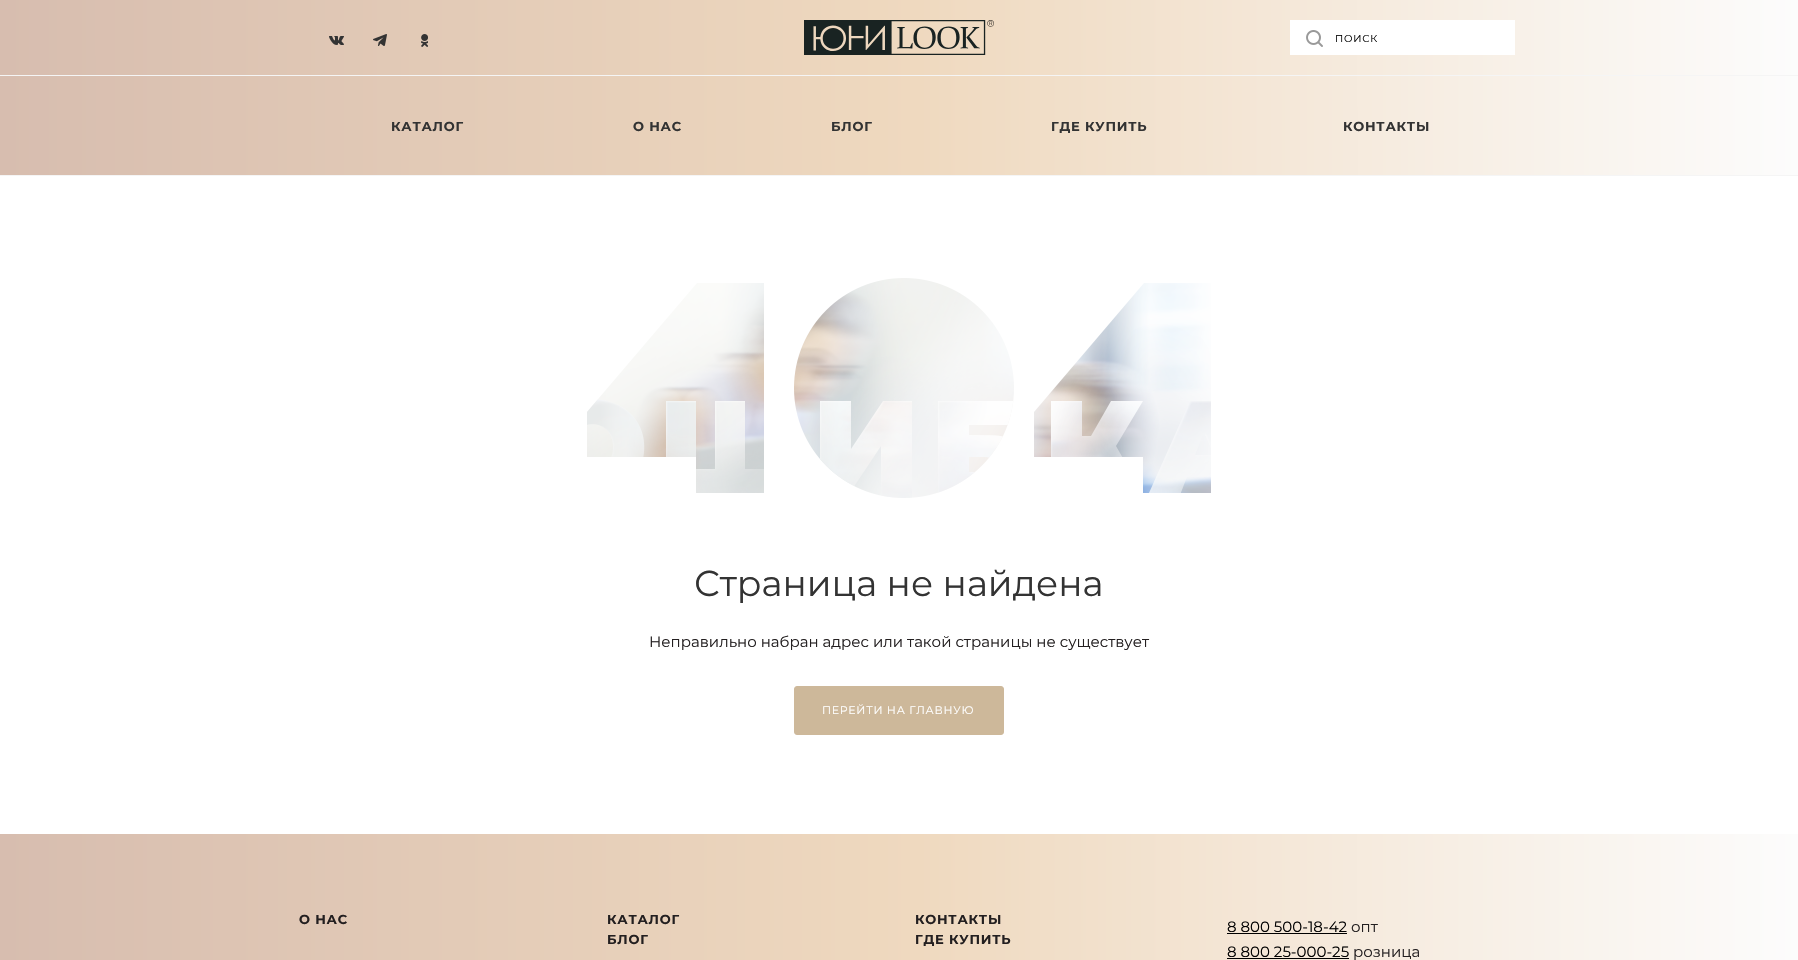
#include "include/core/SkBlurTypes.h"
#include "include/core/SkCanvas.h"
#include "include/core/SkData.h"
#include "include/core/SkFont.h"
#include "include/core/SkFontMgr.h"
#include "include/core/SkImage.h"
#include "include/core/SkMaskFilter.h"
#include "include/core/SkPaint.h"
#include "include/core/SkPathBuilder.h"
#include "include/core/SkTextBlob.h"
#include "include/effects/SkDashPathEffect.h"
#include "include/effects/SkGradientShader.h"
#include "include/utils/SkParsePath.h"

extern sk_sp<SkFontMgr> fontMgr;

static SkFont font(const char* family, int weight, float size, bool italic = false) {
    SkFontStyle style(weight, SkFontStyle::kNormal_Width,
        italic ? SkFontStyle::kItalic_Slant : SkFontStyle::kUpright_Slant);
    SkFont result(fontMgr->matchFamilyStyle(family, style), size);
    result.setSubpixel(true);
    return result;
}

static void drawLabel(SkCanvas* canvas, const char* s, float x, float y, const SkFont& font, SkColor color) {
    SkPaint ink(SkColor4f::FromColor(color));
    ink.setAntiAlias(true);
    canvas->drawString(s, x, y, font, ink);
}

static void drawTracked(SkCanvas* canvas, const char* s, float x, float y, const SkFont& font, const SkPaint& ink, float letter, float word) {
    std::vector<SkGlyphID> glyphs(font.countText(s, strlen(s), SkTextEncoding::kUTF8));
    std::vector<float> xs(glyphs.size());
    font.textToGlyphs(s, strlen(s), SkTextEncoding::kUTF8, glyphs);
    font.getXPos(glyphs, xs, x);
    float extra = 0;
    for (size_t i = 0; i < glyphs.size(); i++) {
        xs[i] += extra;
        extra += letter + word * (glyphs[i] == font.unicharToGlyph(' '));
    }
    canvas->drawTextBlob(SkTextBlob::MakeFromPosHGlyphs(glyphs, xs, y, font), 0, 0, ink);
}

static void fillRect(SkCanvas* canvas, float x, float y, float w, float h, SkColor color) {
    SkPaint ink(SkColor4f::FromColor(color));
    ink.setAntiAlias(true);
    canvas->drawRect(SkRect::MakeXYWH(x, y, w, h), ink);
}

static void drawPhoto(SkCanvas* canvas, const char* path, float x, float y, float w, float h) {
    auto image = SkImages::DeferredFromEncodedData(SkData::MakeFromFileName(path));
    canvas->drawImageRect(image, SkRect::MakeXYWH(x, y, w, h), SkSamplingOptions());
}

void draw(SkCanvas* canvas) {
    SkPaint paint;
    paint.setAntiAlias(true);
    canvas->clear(0xFFFFFFFF);
    {
        const SkColor colors[] = {0xFFD7BDAF, 0xFFEFD9BF, 0xFFFCFCFC};
        const float stops[] = {0, 0.51f, 1};
        const SkPoint ends[] = {{0, 88}, {1798, 87}};
        paint.setShader(SkGradientShader::MakeLinear(ends, colors, stops, 3, SkTileMode::kClamp));
        paint.setAlpha(255);
    }
    canvas->drawRect(SkRect::MakeXYWH(0, 0, 1798, 175), paint);
    fillRect(canvas, 0, 175, 1798, 1, 0xFFF5F5F5);
    fillRect(canvas, 0, 75, 1798, 1, 0xFFF5F5F5);
    drawPhoto(canvas, "assets/img1.png", 329, 36, 15, 9);
    drawPhoto(canvas, "assets/img2.png", 373, 34, 14, 12);
    drawPhoto(canvas, "assets/img3.png", 421, 34, 7, 13);
    drawPhoto(canvas, "assets/img4.png", 804, 20, 190, 35);
    fillRect(canvas, 1290, 20, 225, 35, 0xFFFFFFFF);
    drawPhoto(canvas, "assets/img5.png", 1306, 30, 17, 17);
    SkFont font1 = font("Montserrat", 400, 10);
    paint.setShader(nullptr);
    paint.setColor(0xFF000000);
    drawTracked(canvas, "ПОИСК", 1335, 42, font1, paint, 0.75f, 0);
    SkFont font2 = font("Montserrat", 700, 13);
    paint.setColor(0xFF333333);
    drawTracked(canvas, "КАТАЛОГ", 391, 131, font2, paint, 0.75f, 0);
    drawTracked(canvas, "О НАС", 633, 131, font2, paint, 0.75f, 0);
    drawTracked(canvas, "БЛОГ", 831, 131, font2, paint, 0.75f, 0);
    drawTracked(canvas, "ГДЕ КУПИТЬ", 1051, 131, font2, paint, 0.75f, 0);
    drawTracked(canvas, "КОНТАКТЫ", 1343, 131, font2, paint, 0.75f, 0);
    drawPhoto(canvas, "assets/img6.png", 587, 278, 624, 220);
    SkFont font3 = font("Montserrat", 400, 36);
    drawLabel(canvas, "Страница не найдена", 694, 596, font3, 0xFF333333);
    SkFont font4 = font("Montserrat", 400, 15);
    drawLabel(canvas, "Неправильно набран адрес или такой страницы не существует", 649, 647, font4, 0xFF231F20);
    paint.setColor(0xFFCDB89A);
    canvas->drawRoundRect(SkRect::MakeXYWH(794.5f, 686.5f, 209, 48), 2.5f, 2.5f, paint);
    paint.setStroke(true);
    paint.setStrokeWidth(1);
    canvas->drawRoundRect(SkRect::MakeXYWH(794.5f, 686.5f, 209, 48), 2.5f, 2.5f, paint);
    SkFont font5 = font("Montserrat", 400, 11);
    paint.setStroke(false);
    paint.setColor(0xFFFFFFFF);
    drawTracked(canvas, "ПЕРЕЙТИ НА ГЛАВНУЮ", 822, 714, font5, paint, 0.75f, 0);
    {
        const SkColor colors[] = {0xFFD7BDAF, 0xFFEFD9BF, 0xFFFCFCFC};
        const float stops[] = {0, 0.51f, 1};
        const SkPoint ends[] = {{0, 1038}, {1798, 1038}};
        paint.setShader(SkGradientShader::MakeLinear(ends, colors, stops, 3, SkTileMode::kClamp));
        paint.setAlpha(255);
    }
    canvas->drawRect(SkRect::MakeXYWH(0, 834, 1798, 126), paint);
    paint.setShader(nullptr);
    paint.setColor(0xFF231F20);
    drawTracked(canvas, "О НАС", 299, 924, font2, paint, 0.75f, 0);
    drawTracked(canvas, "КАТАЛОГ", 607, 924, font2, paint, 0.75f, 0);
    drawTracked(canvas, "БЛОГ", 607, 944, font2, paint, 0.75f, 0);
    drawTracked(canvas, "КОНТАКТЫ", 915, 924, font2, paint, 0.75f, 0);
    drawTracked(canvas, "ГДЕ КУПИТЬ", 915, 944, font2, paint, 0.75f, 0);
    drawLabel(canvas, "8 800 500-18-42", 1227, 932, font4, 0xFF000000);
    fillRect(canvas, 1227, 933, 120, 1, 0xFF000000);
    drawLabel(canvas, "опт", 1351, 932, font4, 0xFF231F20);
    drawLabel(canvas, "8 800 25-000-25", 1227, 957, font4, 0xFF000000);
    fillRect(canvas, 1227, 958, 122, 1, 0xFF000000);
    drawLabel(canvas, "розница", 1353, 957, font4, 0xFF231F20);
}
